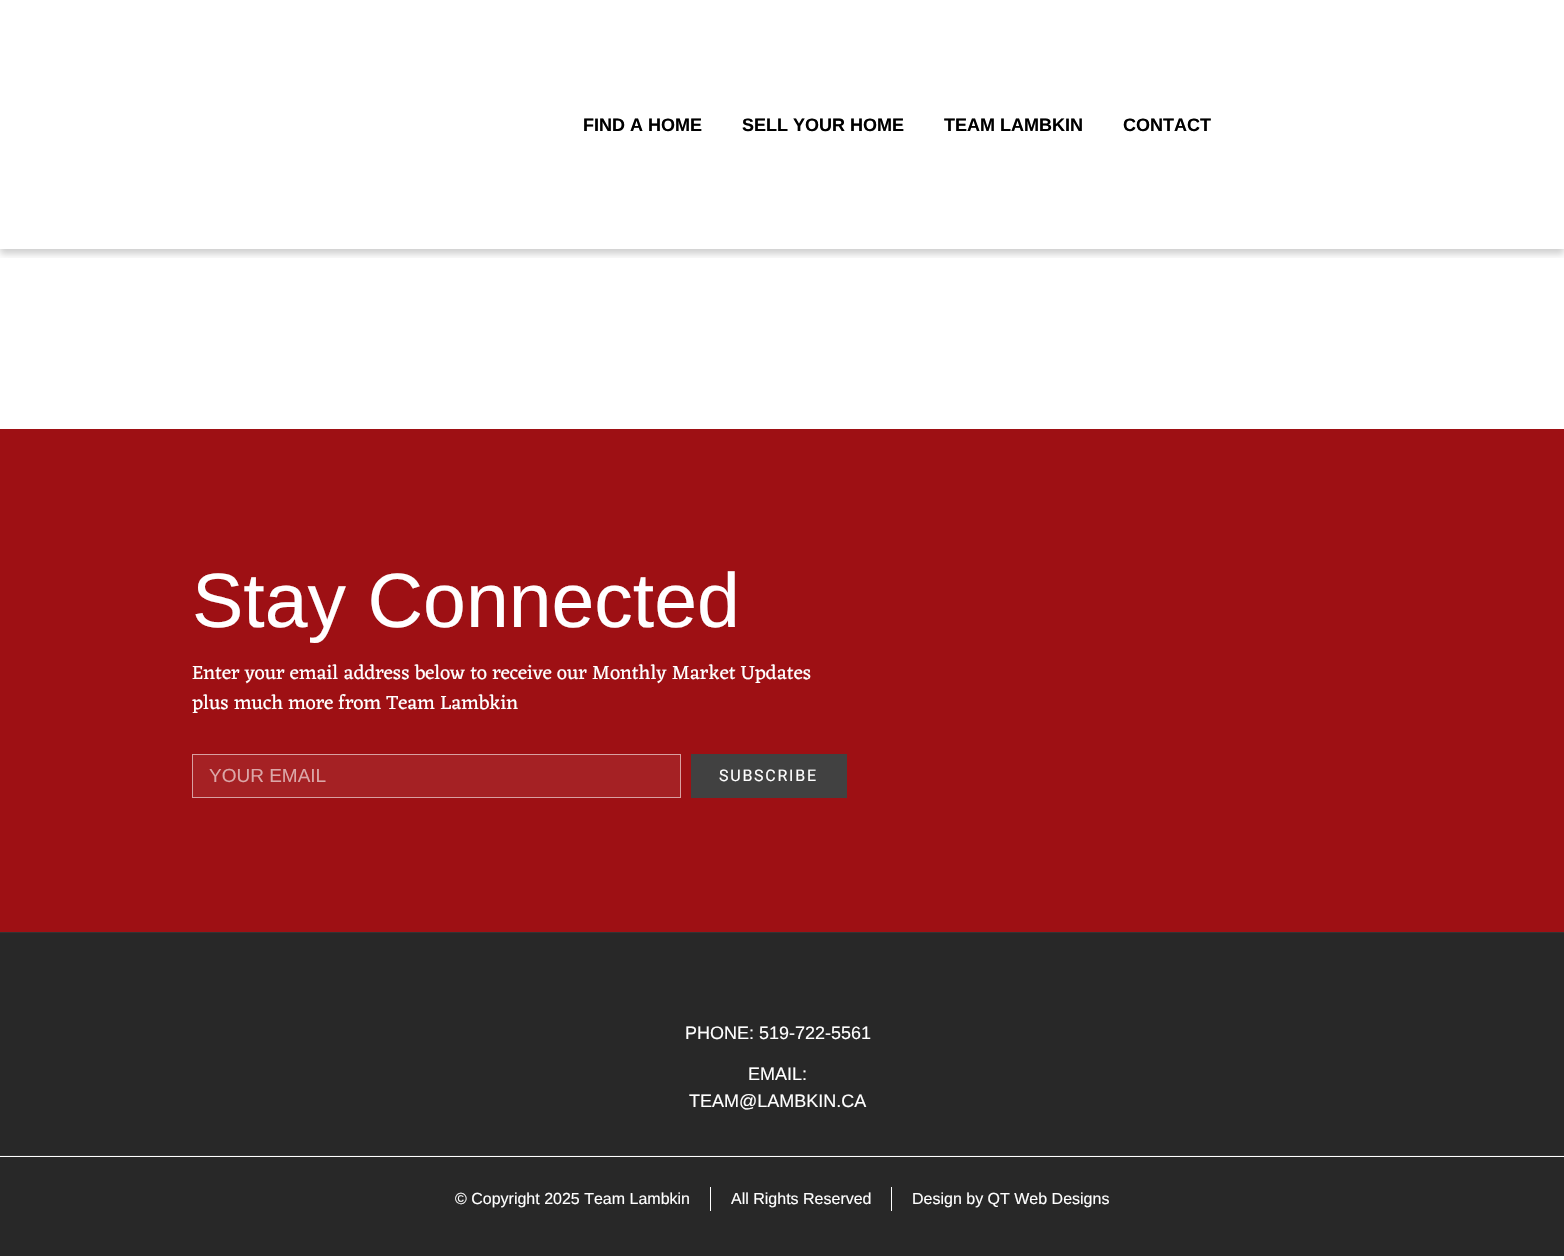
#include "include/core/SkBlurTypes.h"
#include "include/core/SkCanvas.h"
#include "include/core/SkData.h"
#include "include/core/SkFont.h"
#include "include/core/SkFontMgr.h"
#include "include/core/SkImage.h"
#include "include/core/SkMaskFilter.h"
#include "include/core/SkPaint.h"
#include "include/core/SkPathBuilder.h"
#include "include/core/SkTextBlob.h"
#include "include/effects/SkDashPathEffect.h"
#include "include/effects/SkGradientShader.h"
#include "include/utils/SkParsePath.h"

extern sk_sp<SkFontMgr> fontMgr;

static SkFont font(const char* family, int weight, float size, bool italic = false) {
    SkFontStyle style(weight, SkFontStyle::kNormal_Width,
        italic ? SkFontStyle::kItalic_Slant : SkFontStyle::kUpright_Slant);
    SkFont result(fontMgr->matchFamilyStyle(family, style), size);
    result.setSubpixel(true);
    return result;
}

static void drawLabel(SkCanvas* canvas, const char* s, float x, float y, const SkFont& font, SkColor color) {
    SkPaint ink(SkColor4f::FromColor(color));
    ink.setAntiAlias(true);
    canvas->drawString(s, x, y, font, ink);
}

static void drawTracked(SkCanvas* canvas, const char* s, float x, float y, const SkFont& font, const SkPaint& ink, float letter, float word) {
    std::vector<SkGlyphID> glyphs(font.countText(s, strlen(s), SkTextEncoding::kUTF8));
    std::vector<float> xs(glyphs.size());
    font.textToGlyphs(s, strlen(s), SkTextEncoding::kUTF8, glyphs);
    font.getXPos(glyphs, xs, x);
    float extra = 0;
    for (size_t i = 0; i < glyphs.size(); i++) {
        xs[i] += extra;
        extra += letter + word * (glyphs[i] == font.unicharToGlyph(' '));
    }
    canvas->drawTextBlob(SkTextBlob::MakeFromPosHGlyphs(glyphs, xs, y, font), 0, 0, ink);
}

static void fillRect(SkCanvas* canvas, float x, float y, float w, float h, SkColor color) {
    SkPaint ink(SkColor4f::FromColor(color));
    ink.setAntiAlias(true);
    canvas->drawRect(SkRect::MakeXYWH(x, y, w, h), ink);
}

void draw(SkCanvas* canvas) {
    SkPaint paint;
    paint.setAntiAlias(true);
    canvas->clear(0xFFFFFFFF);
    canvas->save();
    canvas->clipRect(SkRect::MakeXYWH(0, 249, 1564, 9));
    paint.setColor(0x30000000);
    paint.setMaskFilter(SkMaskFilter::MakeBlur(kNormal_SkBlurStyle, 3.5f));
    canvas->drawRect(SkRect::MakeXYWH(0, 5, 1564, 249), paint);
    paint.setMaskFilter(nullptr);
    canvas->restore();
    SkFont font1 = font("Liberation Sans", 700, 18);
    drawLabel(canvas, "FIND A HOME", 583, 131, font1, 0xFF000000);
    drawLabel(canvas, "SELL YOUR HOME", 742, 131, font1, 0xFF000000);
    drawLabel(canvas, "TEAM LAMBKIN", 944, 131, font1, 0xFF000000);
    drawLabel(canvas, "CONTACT", 1123, 131, font1, 0xFF000000);
    fillRect(canvas, 0, 429, 1564, 503, 0xFF9E1014);
    SkFont font2 = font("Liberation Sans", 400, 77);
    drawLabel(canvas, "Stay Connected", 192, 627, font2, 0xFFFFFFFF);
    SkFont font3 = font("Eczar", 400, 20);
    drawLabel(canvas, "Enter your email address below to receive our Monthly Market Updates", 192, 679, font3, 0xFFFFFFFF);
    drawLabel(canvas, "plus much more from Team Lambkin", 192, 709, font3, 0xFFFFFFFF);
    paint.setColor(0xFFA52124);
    canvas->drawRect(SkRect::MakeXYWH(192.5f, 754.5f, 488, 43), paint);
    paint.setStroke(true);
    paint.setStrokeWidth(1);
    paint.setColor(0xFFD8A0A1);
    canvas->drawRect(SkRect::MakeXYWH(192.5f, 754.5f, 488, 43), paint);
    SkFont font4 = font("Liberation Sans", 400, 19);
    drawLabel(canvas, "YOUR EMAIL", 209, 782, font4, 0xFFDBA6A7);
    fillRect(canvas, 691, 754, 156, 44, 0xFF414141);
    SkFont font5 = font("Roboto", 400, 16);
    paint.setStroke(false);
    paint.setColor(0xFFFFFFFF);
    drawTracked(canvas, "SUBSCRIBE", 719, 781, font5, paint, 1.75f, 0);
    fillRect(canvas, 0, 933, 1564, 222, 0xFF282828);
    fillRect(canvas, 0, 932, 1564, 1, 0xFF333333);
    fillRect(canvas, 0, 1155, 1564, 1, 0xFF333333);
    SkFont font6 = font("Liberation Sans", 400, 18);
    drawLabel(canvas, "PHONE: 519-722-5561", 685, 1039, font6, 0xFFFFFFFF);
    drawLabel(canvas, "EMAIL:", 748, 1080, font6, 0xFFFFFFFF);
    drawLabel(canvas, "TEAM@LAMBKIN.CA", 689, 1107, font6, 0xFFFFFFFF);
    fillRect(canvas, 0, 1157, 1564, 99, 0xFF282828);
    SkFont font7 = font("Liberation Sans", 400, 16);
    drawLabel(canvas, "© Copyright 2025 Team Lambkin", 455, 1204, font7, 0xFFFFFFFF);
    fillRect(canvas, 891, 1187, 1, 24, 0xFFFFFFFF);
    fillRect(canvas, 710, 1187, 1, 24, 0xFFFFFFFF);
    drawLabel(canvas, "All Rights Reserved", 731, 1204, font7, 0xFFFFFFFF);
    drawLabel(canvas, "Design by QT Web Designs", 912, 1204, font7, 0xFFFFFFFF);
}
